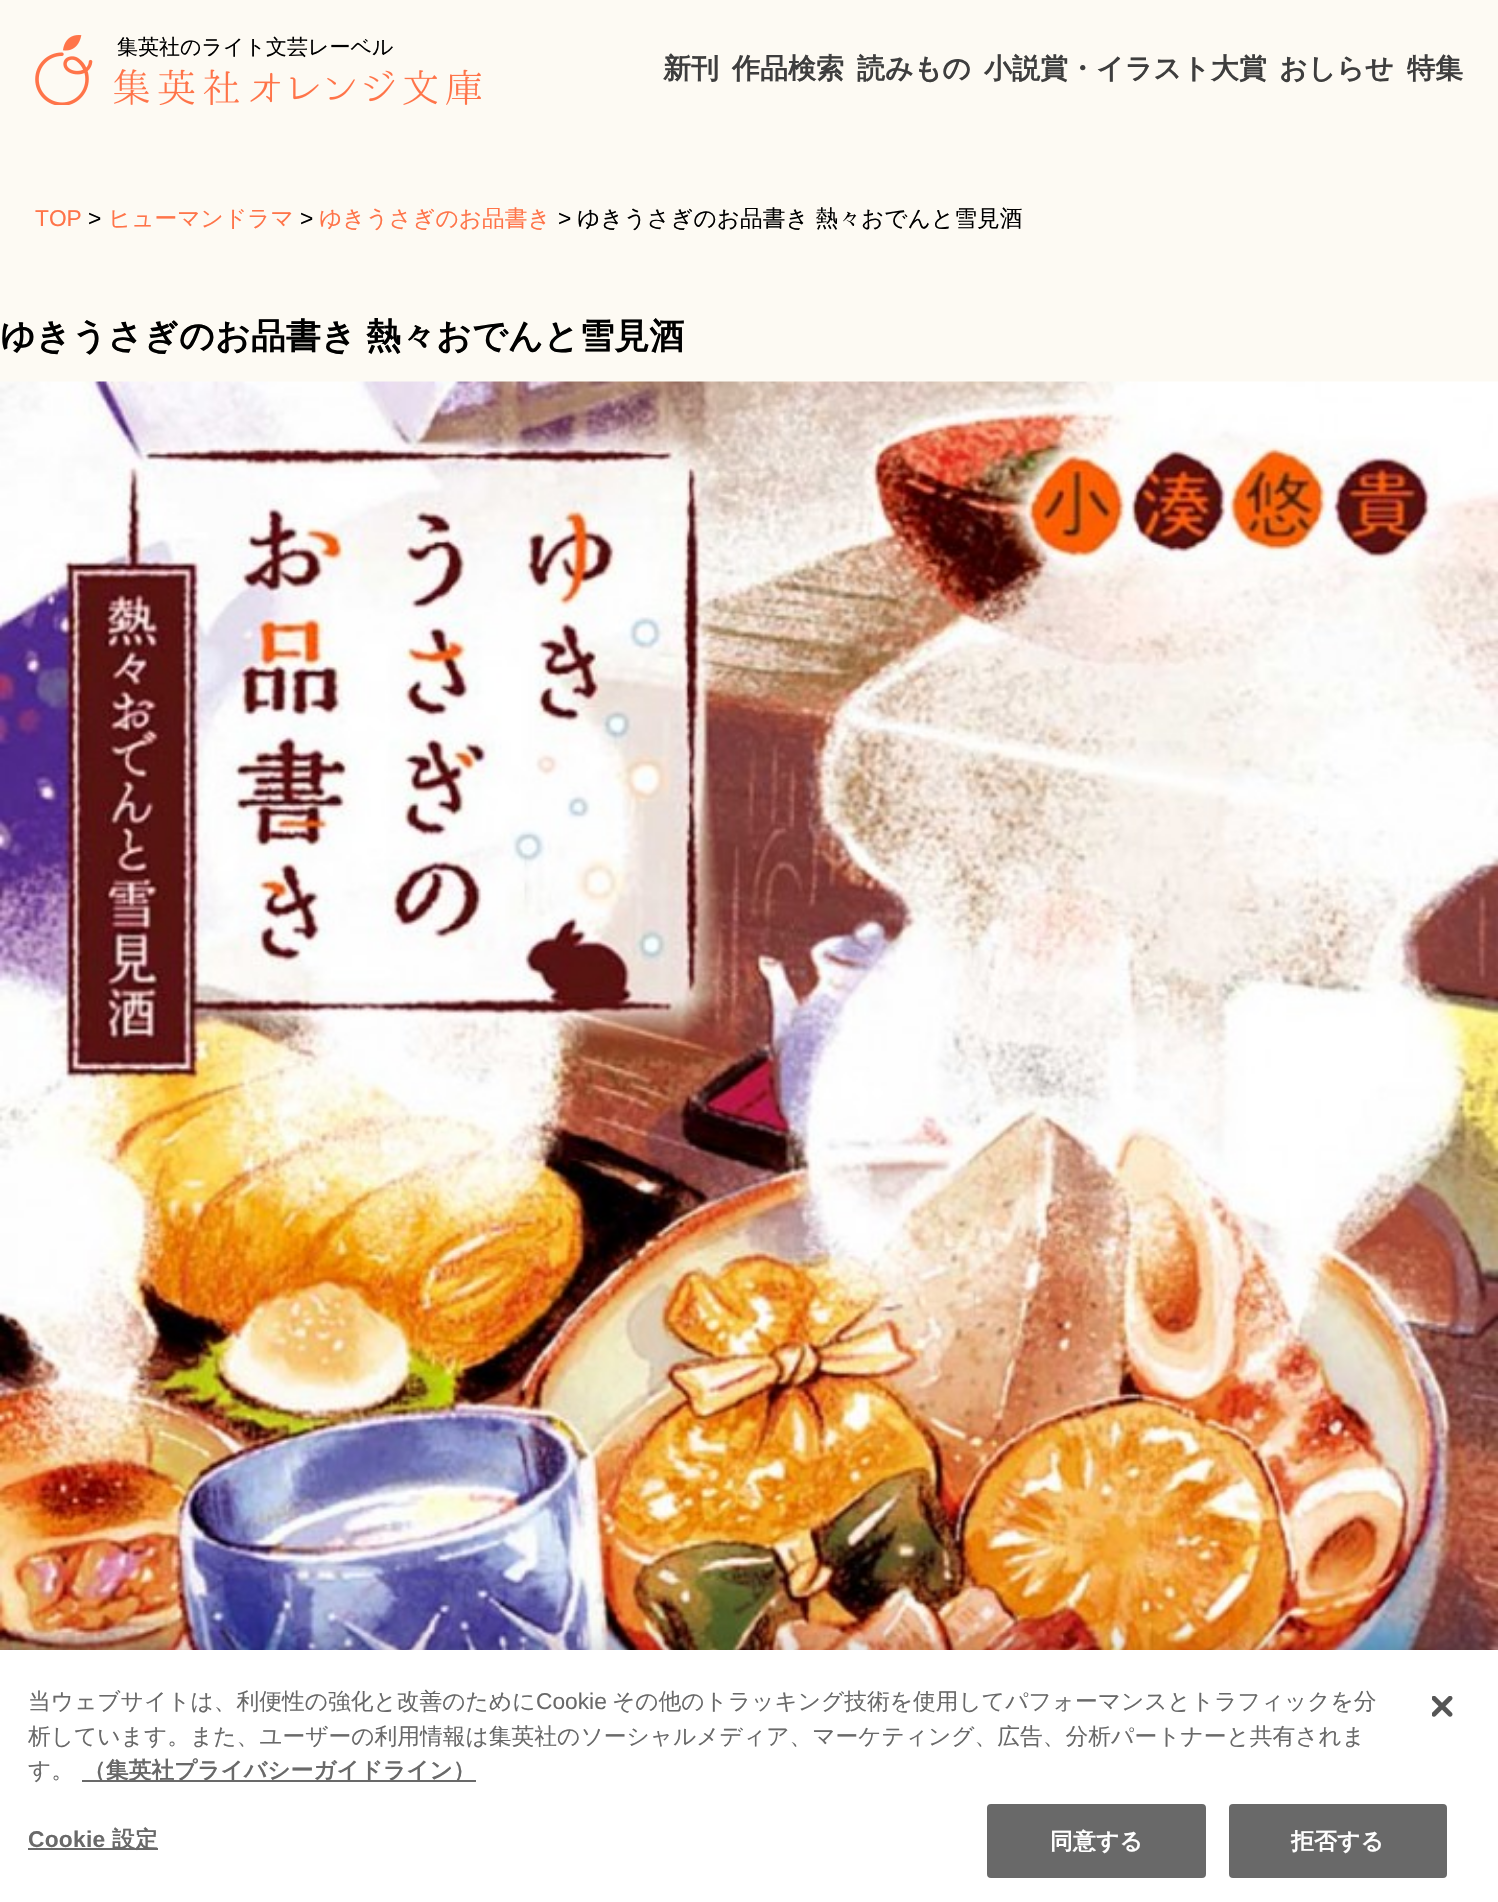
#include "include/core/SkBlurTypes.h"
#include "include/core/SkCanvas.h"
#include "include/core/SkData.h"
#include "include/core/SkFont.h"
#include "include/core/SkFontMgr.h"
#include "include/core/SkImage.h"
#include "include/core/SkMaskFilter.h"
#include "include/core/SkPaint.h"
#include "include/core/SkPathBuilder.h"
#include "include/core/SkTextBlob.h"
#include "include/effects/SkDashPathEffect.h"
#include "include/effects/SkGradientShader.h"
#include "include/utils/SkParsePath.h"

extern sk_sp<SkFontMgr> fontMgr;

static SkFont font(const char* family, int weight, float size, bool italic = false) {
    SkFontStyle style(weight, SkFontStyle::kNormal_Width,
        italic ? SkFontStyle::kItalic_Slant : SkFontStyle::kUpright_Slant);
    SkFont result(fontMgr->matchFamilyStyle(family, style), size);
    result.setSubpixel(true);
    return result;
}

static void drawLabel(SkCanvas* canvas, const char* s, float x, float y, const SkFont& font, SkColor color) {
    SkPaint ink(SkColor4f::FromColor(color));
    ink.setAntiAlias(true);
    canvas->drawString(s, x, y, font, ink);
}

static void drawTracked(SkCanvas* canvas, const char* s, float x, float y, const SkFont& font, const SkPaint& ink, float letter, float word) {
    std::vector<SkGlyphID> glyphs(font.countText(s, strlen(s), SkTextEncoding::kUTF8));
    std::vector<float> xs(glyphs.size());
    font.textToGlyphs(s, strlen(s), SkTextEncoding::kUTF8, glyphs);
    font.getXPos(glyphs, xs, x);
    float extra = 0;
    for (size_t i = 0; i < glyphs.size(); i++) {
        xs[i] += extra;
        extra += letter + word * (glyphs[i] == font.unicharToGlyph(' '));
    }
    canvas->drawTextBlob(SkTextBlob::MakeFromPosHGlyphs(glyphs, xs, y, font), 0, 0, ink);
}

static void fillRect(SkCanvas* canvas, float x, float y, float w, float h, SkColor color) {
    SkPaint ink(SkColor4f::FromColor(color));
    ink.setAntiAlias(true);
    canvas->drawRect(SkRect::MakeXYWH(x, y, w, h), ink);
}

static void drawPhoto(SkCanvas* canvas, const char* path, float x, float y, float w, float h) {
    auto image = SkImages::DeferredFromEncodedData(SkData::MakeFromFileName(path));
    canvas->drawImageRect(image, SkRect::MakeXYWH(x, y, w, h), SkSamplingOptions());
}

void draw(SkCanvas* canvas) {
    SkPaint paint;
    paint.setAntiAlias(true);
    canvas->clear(0xFFFDFAF3);
    drawPhoto(canvas, "assets/img1.png", 35, 35, 446, 70);
    SkFont font1 = font("WenQuanYi Zen Hei", 500, 21);
    drawLabel(canvas, "集英社のライト文芸レーベル", 117, 54, font1, 0xFF000000);
    SkFont font2 = font("WenQuanYi Zen Hei", 700, 28);
    drawLabel(canvas, "新刊", 663, 78, font2, 0xFF3E3E3E);
    drawLabel(canvas, "作品検索", 732, 78, font2, 0xFF3E3E3E);
    drawLabel(canvas, "読みもの", 857, 78, font2, 0xFF3E3E3E);
    drawLabel(canvas, "小説賞・イラスト大賞", 984, 78, font2, 0xFF3E3E3E);
    drawLabel(canvas, "おしらせ", 1279, 78, font2, 0xFF3E3E3E);
    drawLabel(canvas, "特集", 1407, 78, font2, 0xFF3E3E3E);
    SkFont font3 = font("Liberation Sans", 400, 22.75f);
    drawLabel(canvas, "TOP", 35, 226, font3, 0xFFFF7449);
    drawLabel(canvas, ">", 88, 226, font3, 0xFF000000);
    SkFont font4 = font("WenQuanYi Zen Hei", 500, 22.75f);
    drawLabel(canvas, "ヒューマンドラマ", 108, 226, font4, 0xFFFF7449);
    drawLabel(canvas, ">", 300, 226, font3, 0xFF000000);
    drawLabel(canvas, "ゆきうさぎのお品書き", 319, 226, font4, 0xFFFF7449);
    drawLabel(canvas, ">", 558, 226, font3, 0xFF000000);
    drawLabel(canvas, "ゆきうさぎのお品書き 熱々おでんと雪見酒", 577, 226, font4, 0xFF000000);
    SkFont font5 = font("WenQuanYi Zen Hei", 700, 35);
    paint.setColor(0xFF000000);
    drawTracked(canvas, "ゆきうさぎのお品書き 熱々おでんと雪見酒", 0, 348, font5, paint, 0, -1);
    drawPhoto(canvas, "assets/img2.png", 0, 381, 1498, 1269);
    paint.setColor(0x33000000);
    paint.setMaskFilter(SkMaskFilter::MakeBlur(kNormal_SkBlurStyle, 16));
    canvas->drawRect(SkRect::MakeXYWH(0, 1650, 1498, 252), paint);
    paint.setMaskFilter(nullptr);
    fillRect(canvas, 0, 1650, 1498, 252, 0xFFFFFFFF);
    drawLabel(canvas, "当ウェブサイトは、利便性の強化と改善のために", 28, 1709, font4, 0xFF696969);
    drawLabel(canvas, "Cookie", 536, 1709, font3, 0xFF696969);
    drawLabel(canvas, "その他のトラッキング技術を使用してパフォーマンスとトラフィックを分", 612, 1709, font4, 0xFF696969);
    drawLabel(canvas, "析しています。また、ユーザーの利用情報は集英社のソーシャルメディア、マーケティング、広告、分析パートナーと共有されま", 28, 1744, font4, 0xFF696969);
    drawLabel(canvas, "す。", 28, 1778, font4, 0xFF696969);
    fillRect(canvas, 82, 1780, 394, 2, 0xFF696969);
    SkFont font6 = font("WenQuanYi Zen Hei", 700, 22.75f);
    drawLabel(canvas, "（集英社プライバシーガイドライン）", 83, 1778, font6, 0xFF696969);
    SkFont font7 = font("Liberation Sans", 700, 22.75f);
    paint.setColor(0xFF696969);
    drawTracked(canvas, "Cookie", 28, 1847, font7, paint, 0.25f, 0);
    fillRect(canvas, 28, 1848, 130, 2, 0xFF696969);
    drawTracked(canvas, "設定", 112, 1847, font6, paint, 0.25f, 0);
    canvas->drawRoundRect(SkRect::MakeXYWH(988, 1805, 217, 72), 3, 3, paint);
    paint.setStroke(true);
    paint.setStrokeWidth(2);
    canvas->drawRoundRect(SkRect::MakeXYWH(988, 1805, 217, 72), 3, 3, paint);
    paint.setStroke(false);
    paint.setColor(0xFFFFFFFF);
    drawTracked(canvas, "同意する", 1050, 1849, font6, paint, 0.25f, 0);
    paint.setColor(0xFF696969);
    canvas->drawRoundRect(SkRect::MakeXYWH(1230, 1805, 216, 72), 3, 3, paint);
    paint.setStroke(true);
    canvas->drawRoundRect(SkRect::MakeXYWH(1230, 1805, 216, 72), 3, 3, paint);
    paint.setStroke(false);
    paint.setColor(0xFFFFFFFF);
    drawTracked(canvas, "拒否する", 1291, 1849, font6, paint, 0.25f, 0);
    drawPhoto(canvas, "assets/img3.png", 1432, 1696, 21, 21);
}
